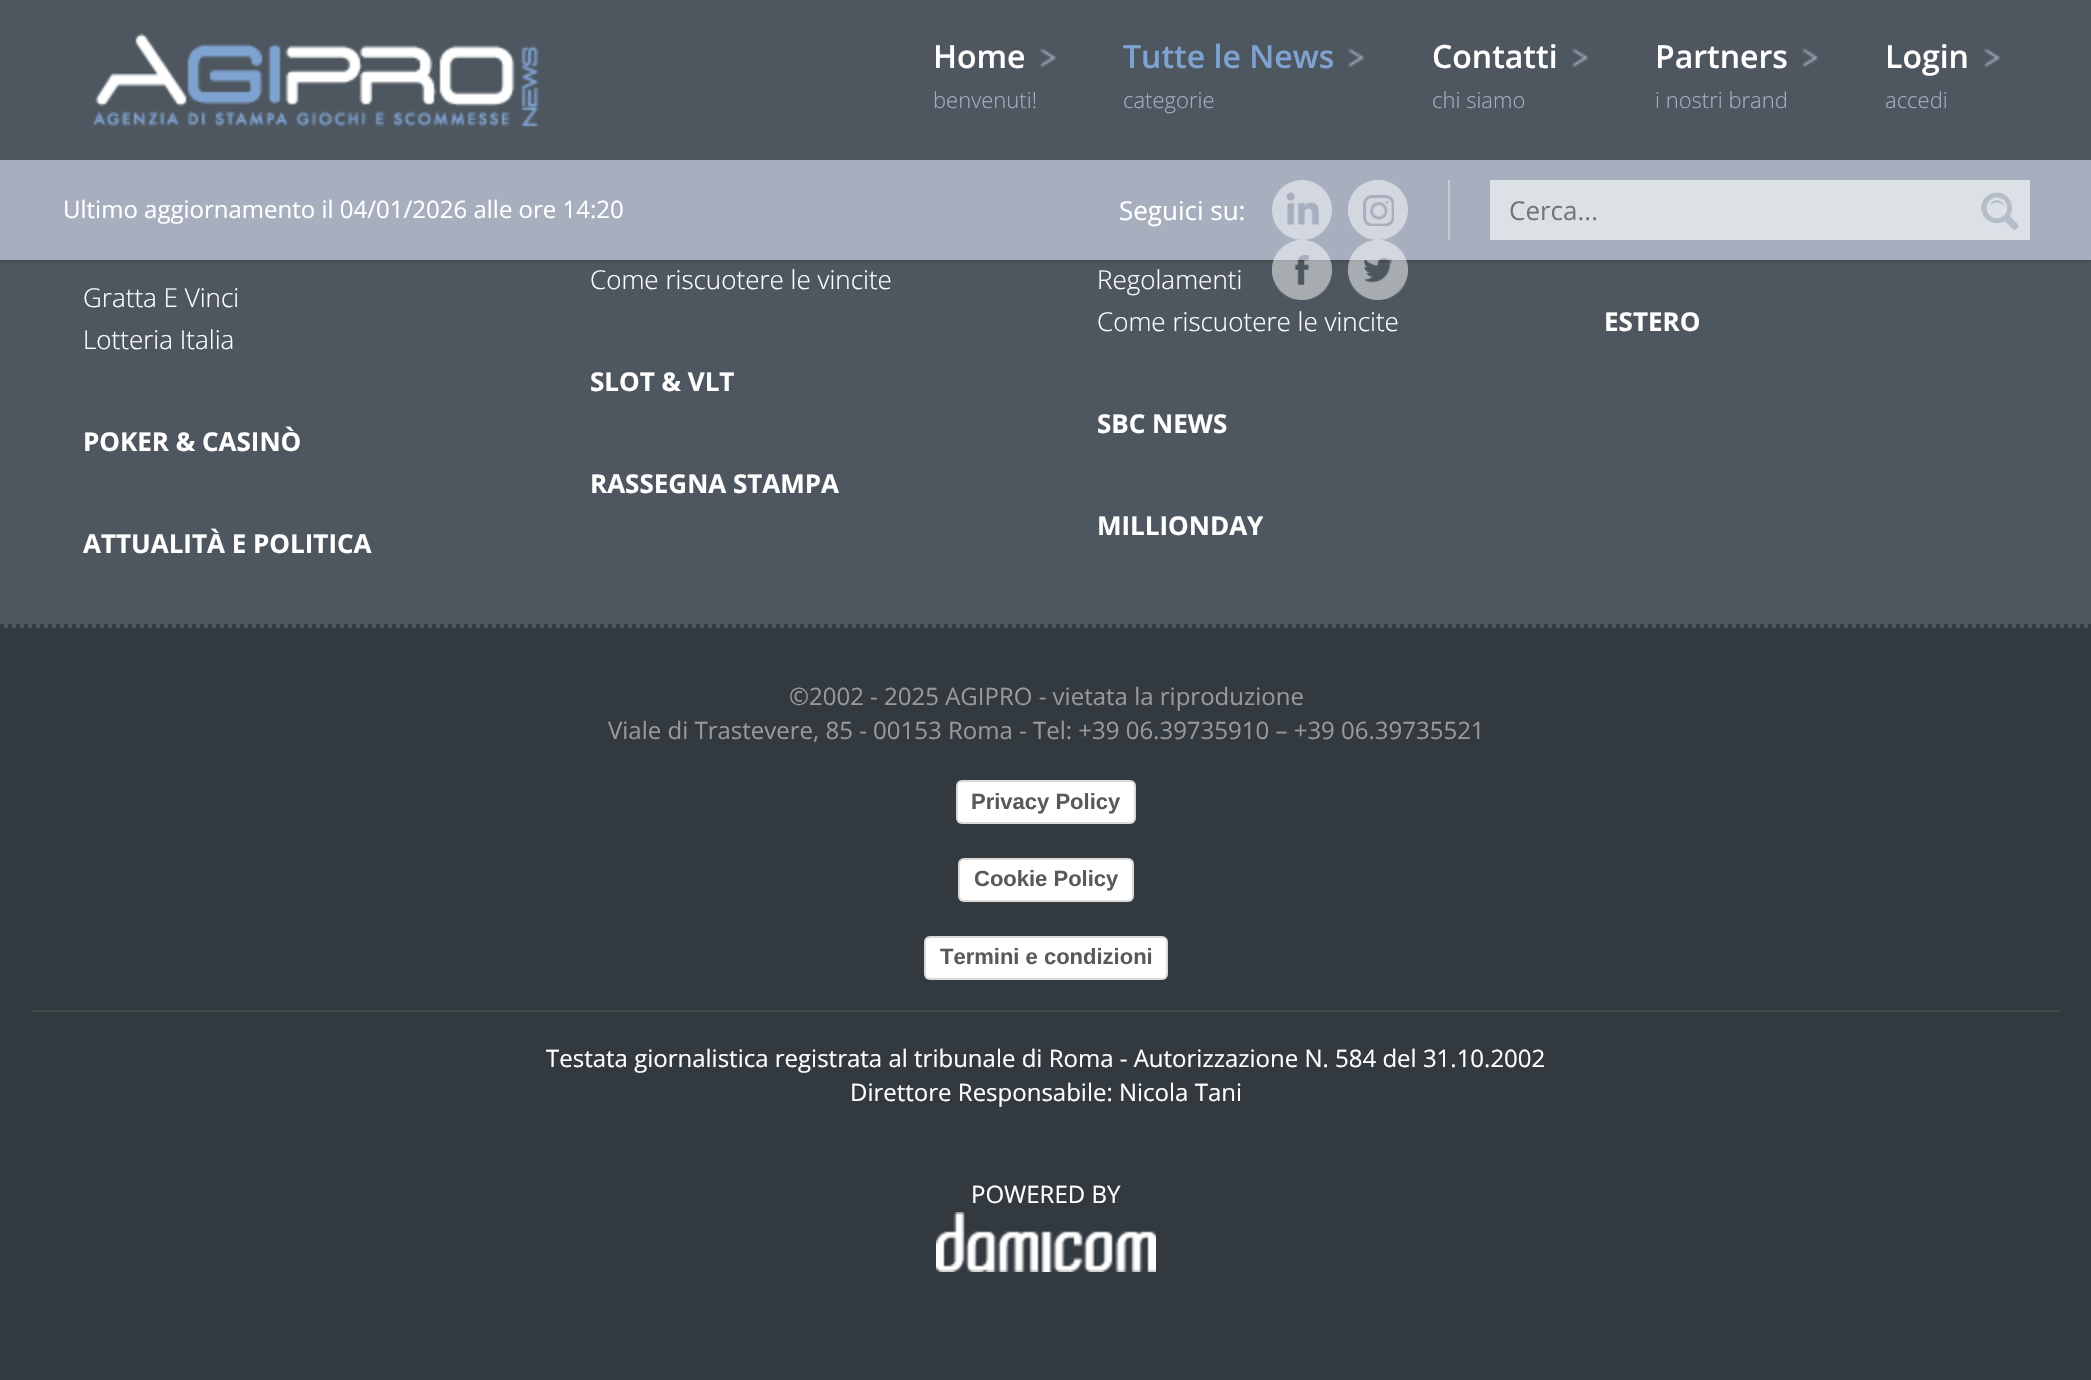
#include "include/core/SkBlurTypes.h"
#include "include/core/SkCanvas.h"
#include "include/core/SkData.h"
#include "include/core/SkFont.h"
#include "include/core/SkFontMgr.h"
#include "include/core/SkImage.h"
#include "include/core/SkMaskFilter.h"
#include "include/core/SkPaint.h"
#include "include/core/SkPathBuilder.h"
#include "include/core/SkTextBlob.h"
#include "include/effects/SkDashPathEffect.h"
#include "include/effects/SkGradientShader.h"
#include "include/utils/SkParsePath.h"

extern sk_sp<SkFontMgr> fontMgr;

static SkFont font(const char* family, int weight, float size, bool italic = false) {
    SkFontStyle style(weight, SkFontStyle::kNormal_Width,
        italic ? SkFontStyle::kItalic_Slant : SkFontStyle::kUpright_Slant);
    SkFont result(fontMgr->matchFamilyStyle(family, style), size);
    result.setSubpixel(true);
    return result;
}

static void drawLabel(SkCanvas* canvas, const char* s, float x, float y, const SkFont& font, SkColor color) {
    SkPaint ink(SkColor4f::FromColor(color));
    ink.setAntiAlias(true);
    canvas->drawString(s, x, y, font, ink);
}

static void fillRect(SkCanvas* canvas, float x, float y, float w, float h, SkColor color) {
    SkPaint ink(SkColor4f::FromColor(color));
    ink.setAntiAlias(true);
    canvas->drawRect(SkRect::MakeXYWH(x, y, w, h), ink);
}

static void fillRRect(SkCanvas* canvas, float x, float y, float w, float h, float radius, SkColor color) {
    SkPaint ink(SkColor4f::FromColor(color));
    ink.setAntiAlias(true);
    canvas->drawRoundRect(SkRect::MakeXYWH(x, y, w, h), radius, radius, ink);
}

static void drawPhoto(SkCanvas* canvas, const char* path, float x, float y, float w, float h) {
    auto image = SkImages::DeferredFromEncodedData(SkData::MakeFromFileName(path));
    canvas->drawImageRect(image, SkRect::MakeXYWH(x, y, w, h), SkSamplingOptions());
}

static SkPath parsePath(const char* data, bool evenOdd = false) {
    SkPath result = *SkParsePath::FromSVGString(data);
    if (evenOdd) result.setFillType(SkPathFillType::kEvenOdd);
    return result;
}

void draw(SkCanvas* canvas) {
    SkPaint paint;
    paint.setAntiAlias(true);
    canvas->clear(0xFF4E5760);
    paint.setColor(0xFF333333);
    paint.setMaskFilter(SkMaskFilter::MakeBlur(kNormal_SkBlurStyle, 2));
    canvas->drawRect(SkRect::MakeXYWH(0, 160, 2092, 100), paint);
    paint.setMaskFilter(nullptr);
    fillRect(canvas, 0, 157, 2091, 3, 0xFF4E5760);
    drawPhoto(canvas, "assets/img1.png", 92, 33, 447, 94);
    SkFont font1 = font("Open Sans", 600, 32);
    drawLabel(canvas, "Home", 933, 68, font1, 0xFFFFFFFF);
    drawPhoto(canvas, "assets/img2.png", 1040, 48, 16, 20);
    SkFont font2 = font("Open Sans", 300, 22);
    drawLabel(canvas, "benvenuti!", 933, 108, font2, 0xFFA4AFBD);
    drawLabel(canvas, "Tutte le News", 1123, 68, font1, 0xFF7FA3D1);
    drawPhoto(canvas, "assets/img2.png", 1348, 48, 16, 20);
    drawLabel(canvas, "categorie", 1123, 108, font2, 0xFFA4AFBD);
    drawLabel(canvas, "Contatti", 1432, 68, font1, 0xFFFFFFFF);
    drawPhoto(canvas, "assets/img2.png", 1572, 48, 16, 20);
    drawLabel(canvas, "chi siamo", 1432, 108, font2, 0xFFA4AFBD);
    drawLabel(canvas, "Partners", 1655, 68, font1, 0xFFFFFFFF);
    drawPhoto(canvas, "assets/img2.png", 1802, 48, 16, 20);
    drawLabel(canvas, "i nostri brand", 1655, 108, font2, 0xFFA4AFBD);
    drawLabel(canvas, "Login", 1885, 68, font1, 0xFFFFFFFF);
    drawPhoto(canvas, "assets/img2.png", 1984, 48, 16, 20);
    drawLabel(canvas, "accedi", 1885, 108, font2, 0xFFA4AFBD);
    fillRect(canvas, 0, 160, 2091, 100, 0xFFA7AEBE);
    SkFont font3 = font("Open Sans", 400, 24);
    drawLabel(canvas, "Ultimo aggiornamento il 04/01/2026 alle ore 14:20", 63, 218, font3, 0xFFFFFFFF);
    fillRect(canvas, 1448, 180, 2, 60, 0xFFC5CCD5);
    SkFont font4 = font("Open Sans", 400, 26);
    drawLabel(canvas, "Seguici su:", 1119, 220, font4, 0xFFFFFFFF);
    drawPhoto(canvas, "assets/img3.png", 1272, 180, 60, 60);
    drawPhoto(canvas, "assets/img4.png", 1348, 180, 60, 60);
    drawPhoto(canvas, "assets/img5.png", 1272, 240, 60, 60);
    drawPhoto(canvas, "assets/img6.png", 1348, 240, 60, 60);
    fillRect(canvas, 1490, 180, 540, 60, 0xFFDCE1E6);
    drawLabel(canvas, "Cerca...", 1509, 220, font4, 0xFF757575);
    drawPhoto(canvas, "assets/img7.png", 1981, 192, 38, 38);
    paint.setStroke(true);
    paint.setStrokeWidth(4);
    paint.setColor(0xFF32393F);
    paint.setPathEffect(SkDashPathEffect::Make({{4, 4}}, 0));
    canvas->drawPath(parsePath("M0 626H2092"), paint);
    paint.setPathEffect(nullptr);
    SkFont font5 = font("Open Sans", 300, 26);
    drawLabel(canvas, "Gratta E Vinci", 83, 307, font5, 0xFFFFFFFF);
    drawLabel(canvas, "Lotteria Italia", 83, 349, font5, 0xFFFFFFFF);
    SkFont font6 = font("Open Sans", 700, 26);
    drawLabel(canvas, "POKER & CASINÒ", 83, 451, font6, 0xFFFFFFFF);
    drawLabel(canvas, "ATTUALITÀ E POLITICA", 83, 553, font6, 0xFFFFFFFF);
    drawLabel(canvas, "Come riscuotere le vincite", 590, 289, font5, 0xFFFFFFFF);
    drawLabel(canvas, "SLOT & VLT", 590, 391, font6, 0xFFFFFFFF);
    drawLabel(canvas, "RASSEGNA STAMPA", 590, 493, font6, 0xFFFFFFFF);
    drawLabel(canvas, "Regolamenti", 1097, 289, font5, 0xFFFFFFFF);
    drawLabel(canvas, "Come riscuotere le vincite", 1097, 331, font5, 0xFFFFFFFF);
    drawLabel(canvas, "SBC NEWS", 1097, 433, font6, 0xFFFFFFFF);
    drawLabel(canvas, "MILLIONDAY", 1097, 535, font6, 0xFFFFFFFF);
    drawLabel(canvas, "ESTERO", 1604, 331, font6, 0xFFFFFFFF);
    fillRect(canvas, 0, 628, 2091, 752, 0xFF32393F);
    fillRect(canvas, 32, 1010, 2028, 2, 0xFF424749);
    drawLabel(canvas, "©2002 - 2025 AGIPRO - vietata la riproduzione", 789, 705, font3, 0xFF999999);
    drawLabel(canvas, "Viale di Trastevere, 85 - 00153 Roma - Tel: +39 06.39735910 – +39 06.39735521", 608, 739, font3, 0xFF999999);
    fillRRect(canvas, 956, 780, 180, 44, 6, 0xFFFFFFFF);
    paint.setStrokeWidth(2);
    paint.setColor(0x26000000);
    canvas->drawRoundRect(SkRect::MakeXYWH(957, 781, 178, 42), 5, 5, paint);
    SkFont font7 = font("Liberation Sans", 700, 22);
    drawLabel(canvas, "Privacy Policy", 971, 809, font7, 0xFF595959);
    fillRRect(canvas, 958, 858, 176, 44, 6, 0xFFFFFFFF);
    canvas->drawRoundRect(SkRect::MakeXYWH(959, 859, 174, 42), 5, 5, paint);
    drawLabel(canvas, "Cookie Policy", 974, 886, font7, 0xFF595959);
    fillRRect(canvas, 924, 936, 244, 44, 6, 0xFFFFFFFF);
    canvas->drawRoundRect(SkRect::MakeXYWH(925, 937, 242, 42), 5, 5, paint);
    drawLabel(canvas, "Termini e condizioni", 940, 964, font7, 0xFF595959);
    drawLabel(canvas, "Testata giornalistica registrata al tribunale di Roma - Autorizzazione N. 584 del 31.10.2002", 546, 1067, font3, 0xFFFFFFFF);
    drawLabel(canvas, "Direttore Responsabile: Nicola Tani", 850, 1101, font3, 0xFFFFFFFF);
    drawLabel(canvas, "POWERED BY", 971, 1203, font3, 0xFFFFFFFF);
    drawPhoto(canvas, "assets/img8.png", 936, 1212, 220, 60);
}
